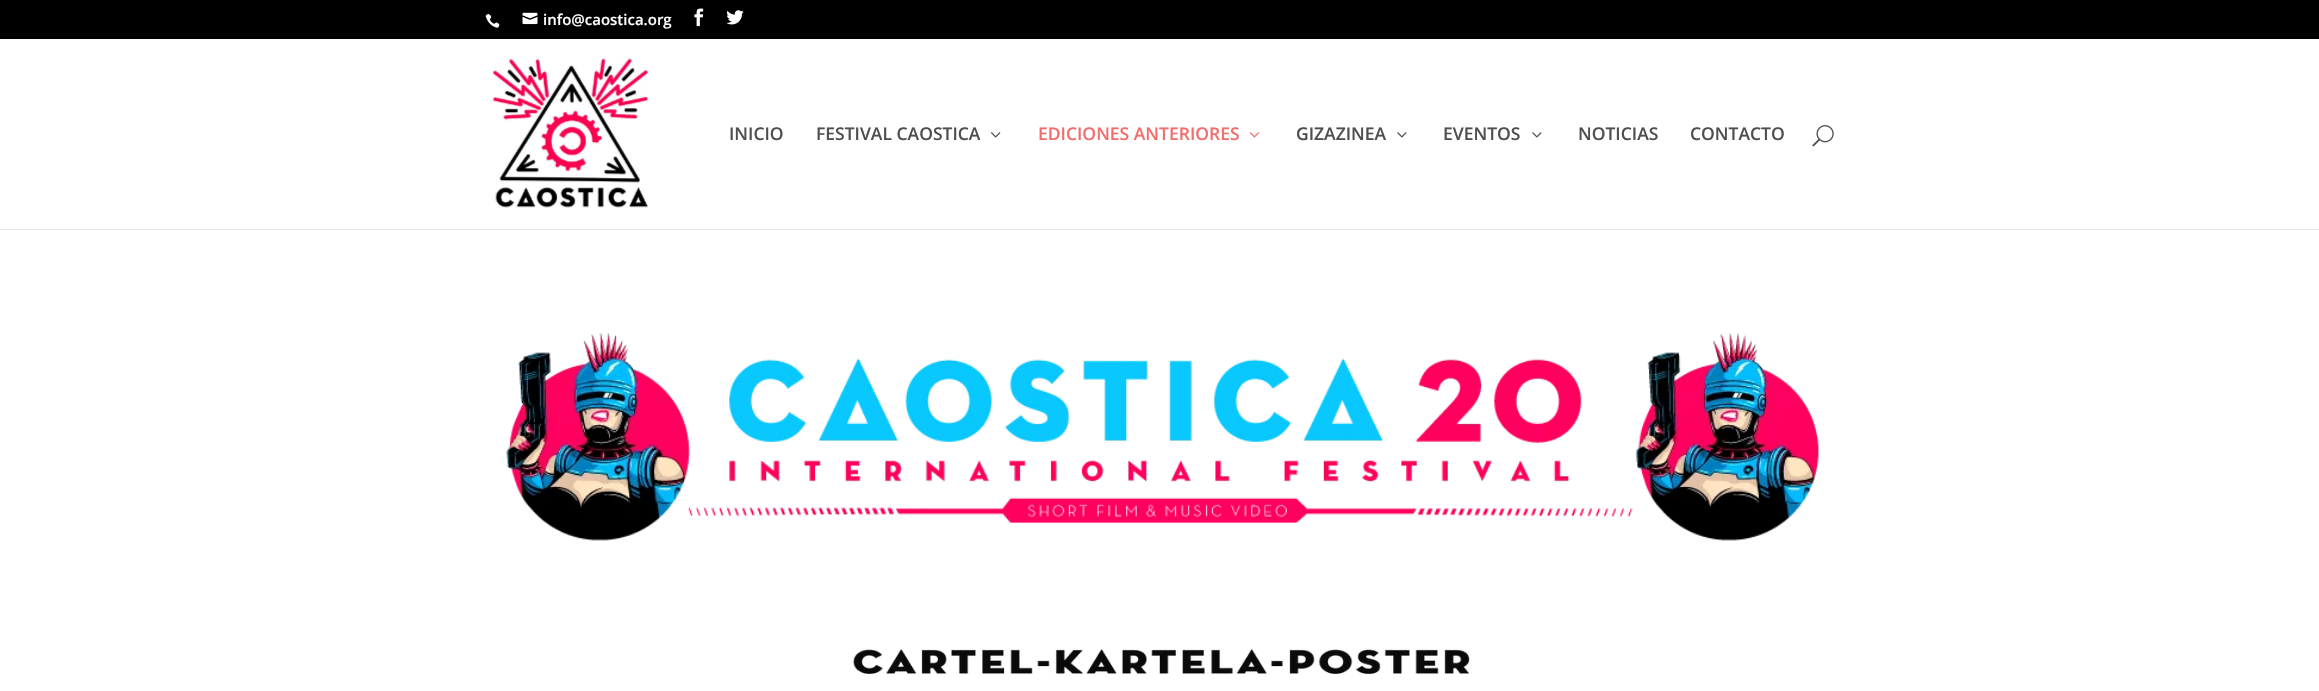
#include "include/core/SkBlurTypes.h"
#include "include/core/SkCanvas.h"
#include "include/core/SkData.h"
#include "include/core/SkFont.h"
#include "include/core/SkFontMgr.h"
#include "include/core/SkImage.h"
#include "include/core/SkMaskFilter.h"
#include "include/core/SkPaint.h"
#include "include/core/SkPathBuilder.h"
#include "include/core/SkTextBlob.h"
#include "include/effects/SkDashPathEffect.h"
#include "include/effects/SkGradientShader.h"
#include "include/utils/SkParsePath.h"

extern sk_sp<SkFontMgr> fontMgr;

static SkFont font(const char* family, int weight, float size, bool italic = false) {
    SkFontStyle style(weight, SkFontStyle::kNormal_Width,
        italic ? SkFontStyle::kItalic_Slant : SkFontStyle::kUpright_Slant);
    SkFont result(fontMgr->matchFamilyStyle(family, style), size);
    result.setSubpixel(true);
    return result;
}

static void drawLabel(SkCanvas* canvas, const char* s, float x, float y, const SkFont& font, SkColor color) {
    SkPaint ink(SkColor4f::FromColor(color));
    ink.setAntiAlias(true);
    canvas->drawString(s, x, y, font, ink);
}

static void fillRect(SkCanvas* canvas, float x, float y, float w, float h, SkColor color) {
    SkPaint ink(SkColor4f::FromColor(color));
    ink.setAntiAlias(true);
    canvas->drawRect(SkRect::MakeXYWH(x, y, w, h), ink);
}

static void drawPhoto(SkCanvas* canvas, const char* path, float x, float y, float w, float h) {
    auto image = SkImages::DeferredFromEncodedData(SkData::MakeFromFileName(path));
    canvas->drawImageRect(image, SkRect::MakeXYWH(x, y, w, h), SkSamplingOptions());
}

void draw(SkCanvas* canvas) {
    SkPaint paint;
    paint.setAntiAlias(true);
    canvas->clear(0xFFFFFFFF);
    fillRect(canvas, 0, 0, 2319, 39, 0xFF000000);
    drawPhoto(canvas, "assets/img1.png", 485, 14, 15, 14);
    drawPhoto(canvas, "assets/img2.png", 522, 12, 16, 13);
    SkFont font1 = font("Open Sans", 600, 15);
    drawLabel(canvas, "info@caostica.org", 543, 25, font1, 0xFFFFFFFF);
    drawPhoto(canvas, "assets/img3.png", 694, 8, 10, 19);
    drawPhoto(canvas, "assets/img4.png", 726, 10, 18, 15);
    fillRect(canvas, 0, 229, 2319, 1, 0xFFE6E6E6);
    drawPhoto(canvas, "assets/img5.png", 492, 57, 156, 151);
    SkFont font2 = font("Open Sans", 600, 17.5f);
    drawLabel(canvas, "INICIO", 729, 140, font2, 0xFF4F4F4F);
    drawLabel(canvas, "FESTIVAL CAOSTICA", 816, 140, font2, 0xFF4F4F4F);
    drawPhoto(canvas, "assets/img6.png", 991, 132, 10, 6);
    drawLabel(canvas, "EDICIONES ANTERIORES", 1038, 140, font2, 0xFFF26D6D);
    drawPhoto(canvas, "assets/img7.png", 1249, 132, 10, 6);
    drawLabel(canvas, "GIZAZINEA", 1296, 140, font2, 0xFF4F4F4F);
    drawPhoto(canvas, "assets/img8.png", 1397, 132, 10, 6);
    drawLabel(canvas, "EVENTOS", 1443, 140, font2, 0xFF4F4F4F);
    drawPhoto(canvas, "assets/img8.png", 1532, 132, 10, 6);
    drawLabel(canvas, "NOTICIAS", 1578, 140, font2, 0xFF4F4F4F);
    drawLabel(canvas, "CONTACTO", 1690, 140, font2, 0xFF4F4F4F);
    drawPhoto(canvas, "assets/img9.png", 1812, 125, 22, 22);
    drawPhoto(canvas, "assets/img10.png", 506, 333, 1313, 208);
    drawPhoto(canvas, "assets/img11.png", 853, 648, 617, 26);
}
